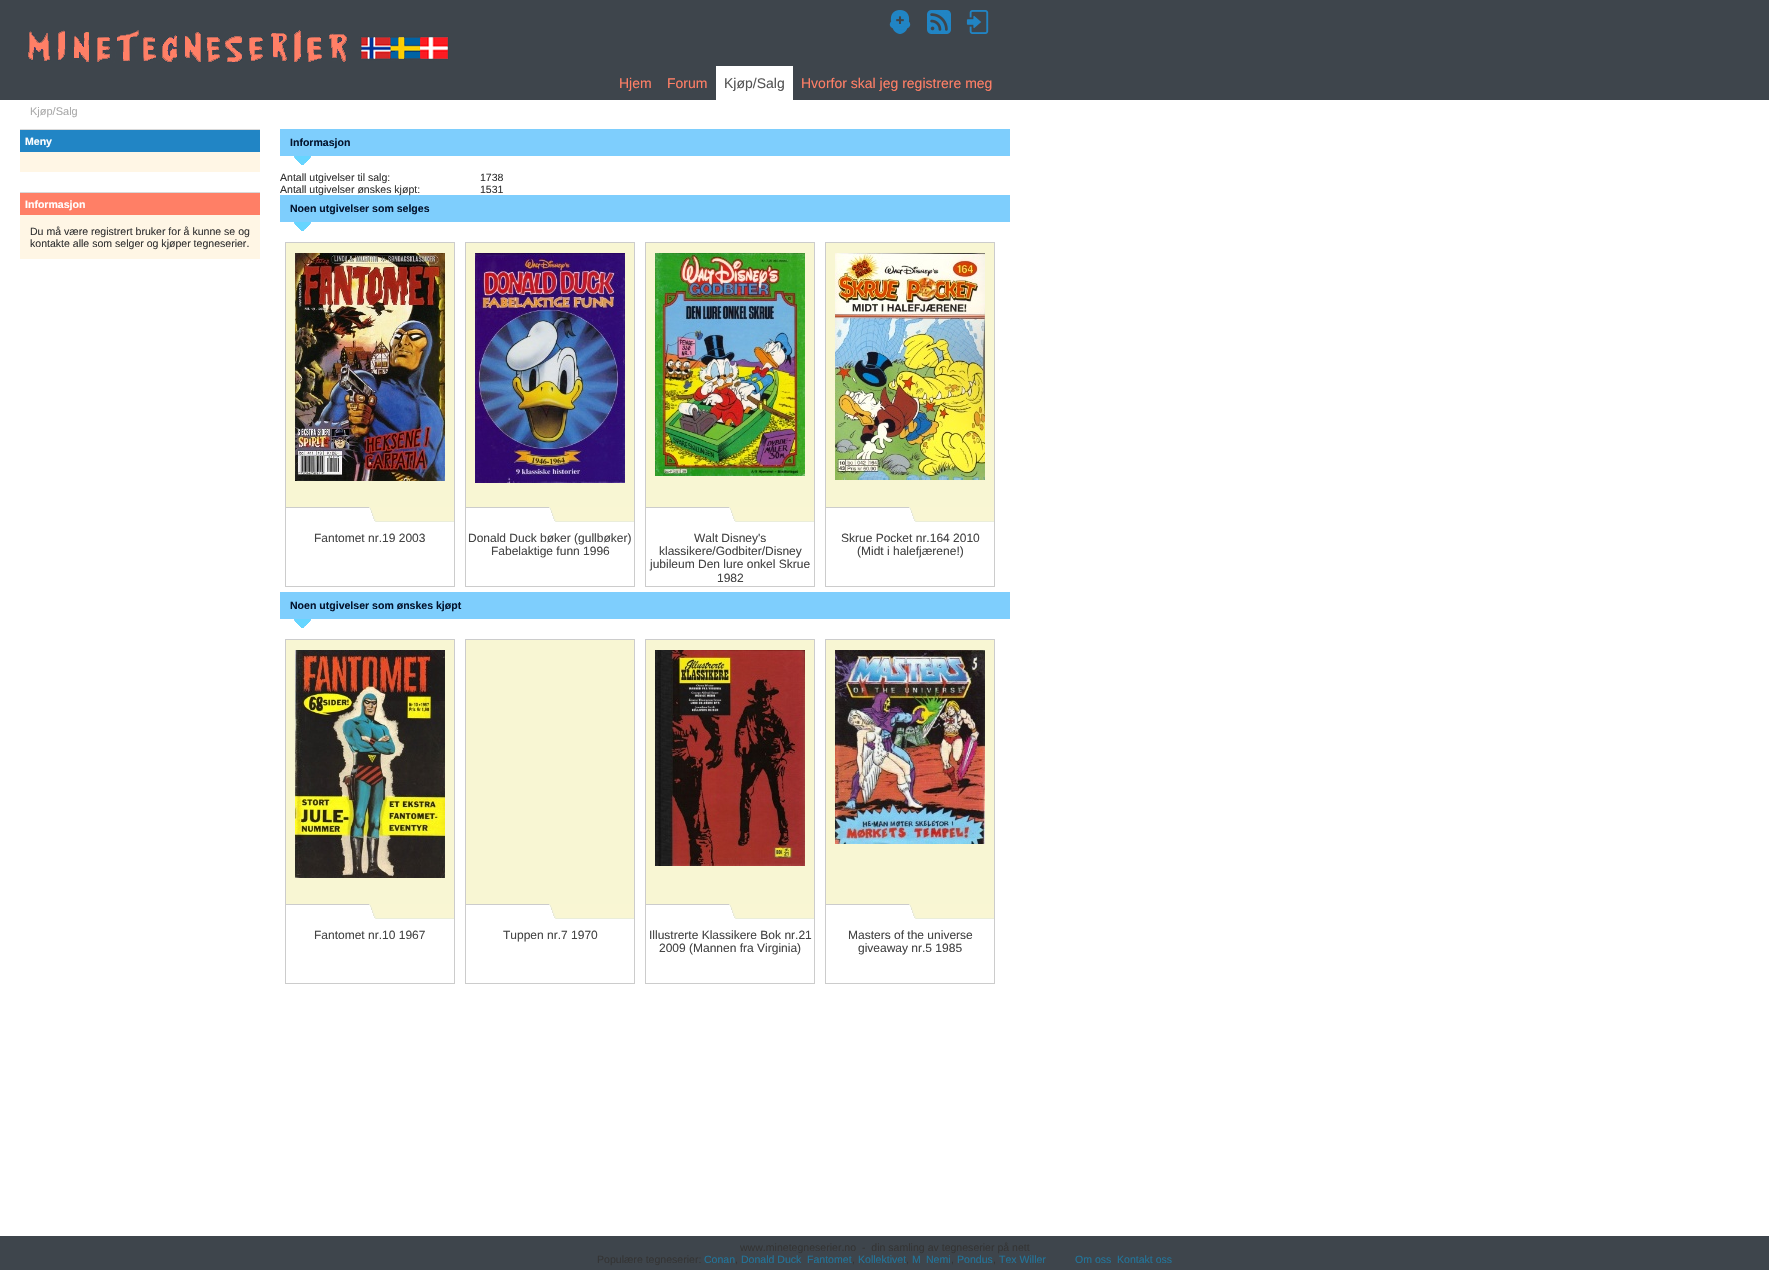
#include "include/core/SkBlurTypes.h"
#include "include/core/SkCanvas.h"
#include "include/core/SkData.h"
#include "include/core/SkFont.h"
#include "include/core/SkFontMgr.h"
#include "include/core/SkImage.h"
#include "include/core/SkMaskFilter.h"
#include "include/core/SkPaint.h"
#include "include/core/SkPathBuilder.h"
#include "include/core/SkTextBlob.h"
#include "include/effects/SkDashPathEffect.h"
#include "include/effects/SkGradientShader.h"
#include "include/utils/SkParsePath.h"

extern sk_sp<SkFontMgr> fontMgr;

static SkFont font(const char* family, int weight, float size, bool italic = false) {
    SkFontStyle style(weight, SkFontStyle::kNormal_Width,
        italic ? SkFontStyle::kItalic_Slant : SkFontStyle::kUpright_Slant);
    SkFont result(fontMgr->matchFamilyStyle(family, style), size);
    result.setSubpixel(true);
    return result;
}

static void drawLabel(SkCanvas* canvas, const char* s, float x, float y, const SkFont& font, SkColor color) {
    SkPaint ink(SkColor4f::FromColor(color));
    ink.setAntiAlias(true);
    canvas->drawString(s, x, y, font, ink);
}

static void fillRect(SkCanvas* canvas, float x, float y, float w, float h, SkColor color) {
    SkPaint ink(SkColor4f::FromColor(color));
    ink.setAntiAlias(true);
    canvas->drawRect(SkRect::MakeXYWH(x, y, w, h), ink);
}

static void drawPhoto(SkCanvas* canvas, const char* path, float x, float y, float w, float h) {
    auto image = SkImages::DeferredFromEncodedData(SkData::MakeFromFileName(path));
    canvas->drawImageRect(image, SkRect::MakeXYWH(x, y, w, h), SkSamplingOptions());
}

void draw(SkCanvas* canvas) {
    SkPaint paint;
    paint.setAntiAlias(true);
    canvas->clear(0xFFFFFFFF);
    fillRect(canvas, 0, 0, 1769, 100, 0xFF3E454C);
    drawPhoto(canvas, "assets/img1.png", 889, 10, 22, 24);
    drawPhoto(canvas, "assets/img2.png", 927, 10, 24, 24);
    drawPhoto(canvas, "assets/img3.png", 966, 10, 23, 24);
    drawPhoto(canvas, "assets/img4.png", 27, 30, 422, 33);
    SkFont font1 = font("Liberation Sans", 400, 14);
    drawLabel(canvas, "Hjem", 619, 88, font1, 0xFFFF7F66);
    drawLabel(canvas, "Forum", 667, 88, font1, 0xFFFF7F66);
    fillRect(canvas, 716, 66, 77, 34, 0xFFFFFFFF);
    drawLabel(canvas, "Kjøp/Salg", 724, 88, font1, 0xFF555555);
    drawLabel(canvas, "Hvorfor skal jeg registrere meg", 801, 88, font1, 0xFFFF7F66);
    SkFont font2 = font("Liberation Sans", 400, 11);
    drawLabel(canvas, "Kjøp/Salg", 30, 115, font2, 0xFFAAAAAA);
    fillRect(canvas, 20, 130, 240, 22, 0xFF2185C5);
    fillRect(canvas, 20, 129, 240, 1, 0xFFD9D9D9);
    SkFont font3 = font("Liberation Sans", 700, 10.55f);
    drawLabel(canvas, "Meny", 25, 145, font3, 0xFFFFFFFF);
    fillRect(canvas, 20, 152, 240, 20, 0xFFFFF6E5);
    fillRect(canvas, 20, 193, 240, 22, 0xFFFF7F66);
    fillRect(canvas, 20, 192, 240, 1, 0xFFD9D9D9);
    drawLabel(canvas, "Informasjon", 25, 208, font3, 0xFFFFFFFF);
    fillRect(canvas, 20, 215, 240, 44, 0xFFFFF6E5);
    SkFont font4 = font("Liberation Sans", 400, 10.55f);
    drawLabel(canvas, "Du må være registrert bruker for å kunne se og", 30, 235, font4, 0xFF333333);
    drawLabel(canvas, "kontakte alle som selger og kjøper tegneserier.", 30, 247, font4, 0xFF333333);
    fillRect(canvas, 280, 129, 730, 27, 0xFF7ECEFD);
    drawPhoto(canvas, "assets/img5.png", 280, 156, 730, 10);
    drawLabel(canvas, "Informasjon", 290, 146, font3, 0xFF04142E);
    drawLabel(canvas, "Antall utgivelser til salg:", 280, 181, font4, 0xFF333333);
    drawLabel(canvas, "1738", 480, 181, font4, 0xFF333333);
    fillRect(canvas, 280, 195, 730, 27, 0xFF7ECEFD);
    drawLabel(canvas, "Antall utgivelser ønskes kjøpt:", 280, 193, font4, 0xFF333333);
    drawLabel(canvas, "1531", 480, 193, font4, 0xFF333333);
    drawPhoto(canvas, "assets/img5.png", 280, 222, 730, 10);
    drawLabel(canvas, "Noen utgivelser som selges", 290, 212, font3, 0xFF04142E);
    paint.setStroke(true);
    paint.setStrokeWidth(1);
    paint.setColor(0xFFCCCCCC);
    canvas->drawRect(SkRect::MakeXYWH(285.5f, 242.5f, 169, 344), paint);
    fillRect(canvas, 286, 243, 168, 264, 0xFFF8F6D3);
    fillRect(canvas, 286, 507, 83, 1, 0xFFCCCCCC);
    drawPhoto(canvas, "assets/img6.png", 295, 253, 150, 228);
    drawPhoto(canvas, "assets/img7.png", 369, 507, 85, 15);
    SkFont font5 = font("Liberation Sans", 400, 12);
    drawLabel(canvas, "Fantomet nr.19 2003", 314, 542, font5, 0xFF444444);
    canvas->drawRect(SkRect::MakeXYWH(465.5f, 242.5f, 169, 344), paint);
    fillRect(canvas, 466, 243, 168, 264, 0xFFF8F6D3);
    fillRect(canvas, 466, 507, 83, 1, 0xFFCCCCCC);
    drawPhoto(canvas, "assets/img8.png", 475, 253, 150, 230);
    drawPhoto(canvas, "assets/img7.png", 549, 507, 85, 15);
    drawLabel(canvas, "Donald Duck bøker (gullbøker)", 468, 542, font5, 0xFF444444);
    drawLabel(canvas, "Fabelaktige funn 1996", 491, 555, font5, 0xFF444444);
    canvas->drawRect(SkRect::MakeXYWH(645.5f, 242.5f, 169, 344), paint);
    fillRect(canvas, 646, 243, 168, 264, 0xFFF8F6D3);
    fillRect(canvas, 646, 507, 83, 1, 0xFFCCCCCC);
    drawPhoto(canvas, "assets/img9.png", 655, 253, 150, 223);
    drawPhoto(canvas, "assets/img7.png", 729, 507, 85, 15);
    drawLabel(canvas, "Walt Disney's", 694, 542, font5, 0xFF444444);
    drawLabel(canvas, "klassikere/Godbiter/Disney", 659, 555, font5, 0xFF444444);
    drawLabel(canvas, "jubileum Den lure onkel Skrue", 650, 568, font5, 0xFF444444);
    drawLabel(canvas, "1982", 717, 582, font5, 0xFF444444);
    canvas->drawRect(SkRect::MakeXYWH(825.5f, 242.5f, 169, 344), paint);
    fillRect(canvas, 826, 243, 168, 264, 0xFFF8F6D3);
    fillRect(canvas, 826, 507, 83, 1, 0xFFCCCCCC);
    drawPhoto(canvas, "assets/img10.png", 835, 253, 150, 227);
    drawPhoto(canvas, "assets/img7.png", 909, 507, 85, 15);
    drawLabel(canvas, "Skrue Pocket nr.164 2010", 841, 542, font5, 0xFF444444);
    drawLabel(canvas, "(Midt i halefjærene!)", 857, 555, font5, 0xFF444444);
    fillRect(canvas, 280, 592, 730, 27, 0xFF7ECEFD);
    drawPhoto(canvas, "assets/img5.png", 280, 619, 730, 10);
    drawLabel(canvas, "Noen utgivelser som ønskes kjøpt", 290, 609, font3, 0xFF04142E);
    canvas->drawRect(SkRect::MakeXYWH(285.5f, 639.5f, 169, 344), paint);
    fillRect(canvas, 286, 640, 168, 264, 0xFFF8F6D3);
    fillRect(canvas, 286, 904, 83, 1, 0xFFCCCCCC);
    drawPhoto(canvas, "assets/img11.png", 295, 650, 150, 228);
    drawPhoto(canvas, "assets/img7.png", 369, 904, 85, 15);
    drawLabel(canvas, "Fantomet nr.10 1967", 314, 939, font5, 0xFF444444);
    canvas->drawRect(SkRect::MakeXYWH(465.5f, 639.5f, 169, 344), paint);
    fillRect(canvas, 466, 640, 168, 264, 0xFFF8F6D3);
    fillRect(canvas, 466, 904, 83, 1, 0xFFCCCCCC);
    drawPhoto(canvas, "assets/img7.png", 549, 904, 85, 15);
    drawLabel(canvas, "Tuppen nr.7 1970", 503, 939, font5, 0xFF444444);
    canvas->drawRect(SkRect::MakeXYWH(645.5f, 639.5f, 169, 344), paint);
    fillRect(canvas, 646, 640, 168, 264, 0xFFF8F6D3);
    fillRect(canvas, 646, 904, 83, 1, 0xFFCCCCCC);
    drawPhoto(canvas, "assets/img12.png", 655, 650, 150, 216);
    drawPhoto(canvas, "assets/img7.png", 729, 904, 85, 15);
    drawLabel(canvas, "Illustrerte Klassikere Bok nr.21", 649, 939, font5, 0xFF444444);
    drawLabel(canvas, "2009 (Mannen fra Virginia)", 659, 952, font5, 0xFF444444);
    canvas->drawRect(SkRect::MakeXYWH(825.5f, 639.5f, 169, 344), paint);
    fillRect(canvas, 826, 640, 168, 264, 0xFFF8F6D3);
    fillRect(canvas, 826, 904, 83, 1, 0xFFCCCCCC);
    drawPhoto(canvas, "assets/img13.png", 835, 650, 150, 194);
    drawPhoto(canvas, "assets/img7.png", 909, 904, 85, 15);
    drawLabel(canvas, "Masters of the universe", 848, 939, font5, 0xFF444444);
    drawLabel(canvas, "giveaway nr.5 1985", 858, 952, font5, 0xFF444444);
    fillRect(canvas, 0, 1236, 1769, 34, 0xFF3E454C);
    drawLabel(canvas, "www.minetegneserier.no  -  din samling av tegneserier på nett", 740, 1251, font4, 0xFF333333);
    drawLabel(canvas, "Populære tegneserier:", 597, 1263, font4, 0xFF333333);
    drawLabel(canvas, "Conan", 704, 1263, font4, 0xFF21759B);
    drawLabel(canvas, ",", 735, 1263, font4, 0xFF333333);
    drawLabel(canvas, "Donald Duck", 741, 1263, font4, 0xFF21759B);
    drawLabel(canvas, "Fantomet", 807, 1263, font4, 0xFF21759B);
    drawLabel(canvas, ",", 852, 1263, font4, 0xFF333333);
    drawLabel(canvas, "Kollektivet", 858, 1263, font4, 0xFF21759B);
    drawLabel(canvas, ",", 906, 1263, font4, 0xFF333333);
    drawLabel(canvas, "M", 912, 1263, font4, 0xFF21759B);
    drawLabel(canvas, "Nemi", 926, 1263, font4, 0xFF21759B);
    drawLabel(canvas, ",", 951, 1263, font4, 0xFF333333);
    drawLabel(canvas, "Pondus", 957, 1263, font4, 0xFF21759B);
    drawLabel(canvas, ",", 993, 1263, font4, 0xFF333333);
    drawLabel(canvas, "Tex Willer", 999, 1263, font4, 0xFF21759B);
    drawLabel(canvas, "Om oss", 1075, 1263, font4, 0xFF21759B);
    drawLabel(canvas, "Kontakt oss", 1117, 1263, font4, 0xFF21759B);
}
